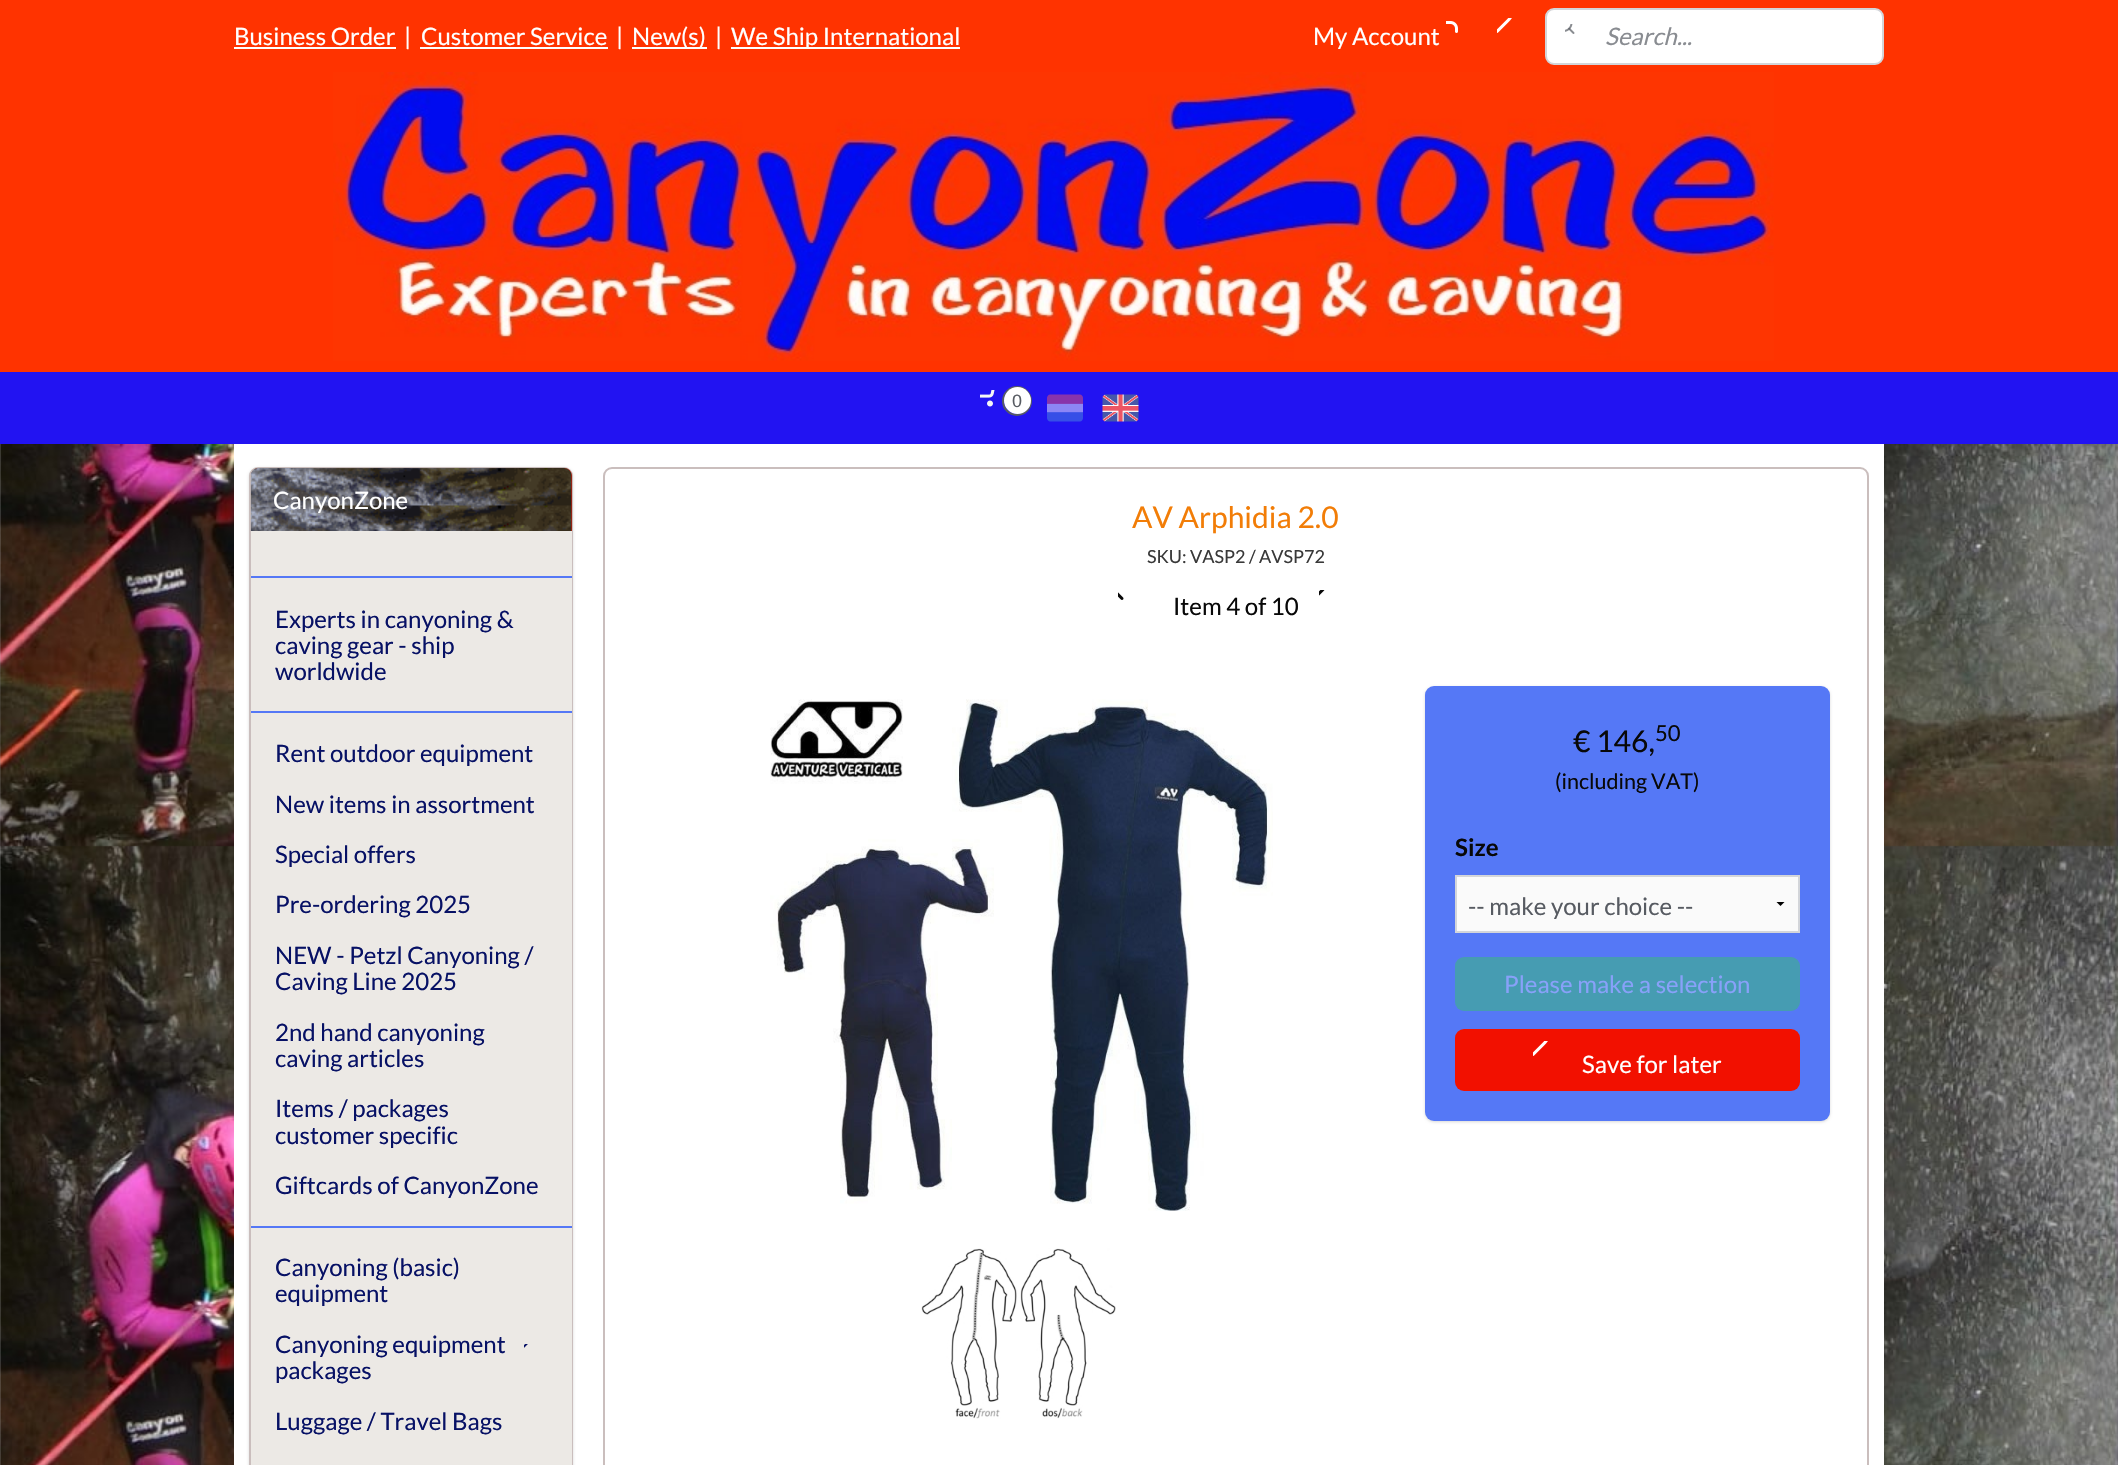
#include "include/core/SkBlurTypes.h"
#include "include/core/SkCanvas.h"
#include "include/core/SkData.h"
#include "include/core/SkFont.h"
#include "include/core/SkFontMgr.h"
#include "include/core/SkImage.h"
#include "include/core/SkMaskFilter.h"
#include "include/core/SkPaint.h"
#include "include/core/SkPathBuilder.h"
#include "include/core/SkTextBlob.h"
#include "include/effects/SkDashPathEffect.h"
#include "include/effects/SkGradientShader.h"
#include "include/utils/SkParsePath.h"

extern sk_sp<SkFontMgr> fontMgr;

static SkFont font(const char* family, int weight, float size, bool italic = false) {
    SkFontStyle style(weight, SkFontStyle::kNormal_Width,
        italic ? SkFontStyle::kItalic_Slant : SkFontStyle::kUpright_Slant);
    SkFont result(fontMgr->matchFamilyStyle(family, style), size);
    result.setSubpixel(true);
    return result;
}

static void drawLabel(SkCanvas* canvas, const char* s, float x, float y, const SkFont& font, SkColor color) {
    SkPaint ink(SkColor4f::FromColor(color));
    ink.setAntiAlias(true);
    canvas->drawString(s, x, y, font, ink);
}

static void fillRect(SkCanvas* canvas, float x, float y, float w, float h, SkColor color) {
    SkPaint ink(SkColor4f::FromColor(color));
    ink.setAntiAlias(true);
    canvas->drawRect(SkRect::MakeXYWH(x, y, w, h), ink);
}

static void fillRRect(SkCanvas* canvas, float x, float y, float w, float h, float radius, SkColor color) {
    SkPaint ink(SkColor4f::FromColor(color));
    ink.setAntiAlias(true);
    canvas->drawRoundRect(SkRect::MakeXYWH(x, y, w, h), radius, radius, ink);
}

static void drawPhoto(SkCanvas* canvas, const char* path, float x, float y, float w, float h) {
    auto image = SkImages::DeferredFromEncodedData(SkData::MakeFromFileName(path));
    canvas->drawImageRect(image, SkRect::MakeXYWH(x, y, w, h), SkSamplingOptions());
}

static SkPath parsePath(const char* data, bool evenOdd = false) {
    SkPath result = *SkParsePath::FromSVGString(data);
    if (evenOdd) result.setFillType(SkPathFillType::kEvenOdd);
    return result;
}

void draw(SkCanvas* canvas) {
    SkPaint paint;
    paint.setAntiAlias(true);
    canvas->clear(0xFFFFFFFF);
    fillRect(canvas, 0, 0, 2118, 372, 0xFFFF3300);
    SkFont font1 = font("Lato", 400, 24);
    drawLabel(canvas, "Business Order", 234, 45, font1, 0xFFFFFFFF);
    fillRect(canvas, 234, 47, 162, 2, 0xFFFFFFFF);
    drawLabel(canvas, "|", 404, 45, font1, 0xFFFFFFFF);
    drawLabel(canvas, "Customer Service", 421, 45, font1, 0xFFFFFFFF);
    fillRect(canvas, 420, 47, 188, 2, 0xFFFFFFFF);
    drawLabel(canvas, "|", 616, 45, font1, 0xFFFFFFFF);
    fillRect(canvas, 632, 47, 75, 2, 0xFFFFFFFF);
    drawLabel(canvas, "New(s)", 632, 45, font1, 0xFFFFFFFF);
    drawLabel(canvas, "|", 715, 45, font1, 0xFFFFFFFF);
    fillRect(canvas, 731, 47, 229, 2, 0xFFFFFFFF);
    drawLabel(canvas, "We Ship International", 731, 45, font1, 0xFFFFFFFF);
    drawPhoto(canvas, "assets/img1.png", 1497, 18, 15, 15);
    drawLabel(canvas, "My Account", 1313, 45, font1, 0xFFFFFFFF);
    drawPhoto(canvas, "assets/img2.png", 1446, 21, 12, 12);
    paint.setColor(0xFFFFFFFF);
    canvas->drawRoundRect(SkRect::MakeXYWH(1546, 9, 337, 55), 8, 8, paint);
    paint.setStroke(true);
    paint.setStrokeWidth(2);
    paint.setColor(0xFFD3D5D9);
    canvas->drawRoundRect(SkRect::MakeXYWH(1546, 9, 337, 55), 8, 8, paint);
    drawPhoto(canvas, "assets/img3.png", 1565, 24, 10, 10);
    SkFont font2 = font("Lato", 400, 24, true);
    drawLabel(canvas, "Search...", 1605, 45, font2, 0xFF898C91);
    drawPhoto(canvas, "assets/img4.png", 333, 72, 1441, 289);
    fillRect(canvas, 0, 372, 2118, 72, 0xFF2213F2);
    drawPhoto(canvas, "assets/img5.png", 980, 390, 15, 17);
    paint.setColor(0xFF575B62);
    canvas->drawCircle(1017, 401, 14, paint);
    paint.setStroke(false);
    paint.setColor(0xFFFFFFFF);
    canvas->drawCircle(1017.5f, 400.5f, 13.5f, paint);
    SkFont font3 = font("Liberation Sans", 400, 18);
    drawLabel(canvas, "0", 1012, 407, font3, 0xFF575B62);
    drawPhoto(canvas, "assets/img6.png", 1047, 394, 36, 28);
    drawPhoto(canvas, "assets/img7.png", 1102, 394, 37, 28);
    drawPhoto(canvas, "assets/img8.png", 0, 444, 2118, 1021);
    fillRect(canvas, 234, 444, 1650, 1021, 0xFFFFFFFF);
    paint.setColor(0x26000000);
    paint.setMaskFilter(SkMaskFilter::MakeBlur(kNormal_SkBlurStyle, 1.5f));
    canvas->drawRoundRect(SkRect::MakeXYWH(249, 468, 324, 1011), 9, 9, paint);
    paint.setMaskFilter(nullptr);
    paint.setStroke(true);
    paint.setColor(0xFFCABEBD);
    canvas->drawRoundRect(SkRect::MakeXYWH(250, 468, 322, 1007), 8, 8, paint);
    paint.setStroke(false);
    paint.setColor(0xFFA12010);
    canvas->drawPath(parsePath("M259 468H564C568.5 468 572 471.5 572 476V531H251V476C251 471.5 254.5 468 259 468Z"), paint);
    drawPhoto(canvas, "assets/img9.png", 250, 468, 322, 63);
    drawLabel(canvas, "CanyonZone", 273, 509, font1, 0xFFFFFFFF);
    fillRect(canvas, 251, 531, 321, 934, 0xFFECE9E5);
    fillRect(canvas, 251, 576, 321, 2, 0xFF5578F6);
    drawLabel(canvas, "Experts in canyoning &", 275, 628, font1, 0xFF071165);
    drawLabel(canvas, "caving gear - ship", 275, 654, font1, 0xFF071165);
    drawLabel(canvas, "worldwide", 275, 680, font1, 0xFF071165);
    fillRect(canvas, 251, 711, 321, 2, 0xFF5578F6);
    drawLabel(canvas, "Rent outdoor equipment", 275, 762, font1, 0xFF071165);
    drawLabel(canvas, "New items in assortment", 275, 813, font1, 0xFF071165);
    drawLabel(canvas, "Special offers", 275, 863, font1, 0xFF071165);
    drawLabel(canvas, "Pre-ordering 2025", 275, 913, font1, 0xFF071165);
    drawLabel(canvas, "NEW - Petzl Canyoning /", 275, 964, font1, 0xFF071165);
    drawLabel(canvas, "Caving Line 2025", 275, 990, font1, 0xFF071165);
    drawLabel(canvas, "2nd hand canyoning", 275, 1041, font1, 0xFF071165);
    drawLabel(canvas, "caving articles", 275, 1067, font1, 0xFF071165);
    drawLabel(canvas, "Items / packages", 275, 1117, font1, 0xFF071165);
    drawLabel(canvas, "customer specific", 275, 1144, font1, 0xFF071165);
    drawLabel(canvas, "Giftcards of CanyonZone", 275, 1194, font1, 0xFF071165);
    fillRect(canvas, 251, 1226, 321, 2, 0xFF5578F6);
    drawLabel(canvas, "Canyoning (basic)", 275, 1276, font1, 0xFF071165);
    drawLabel(canvas, "equipment", 275, 1302, font1, 0xFF071165);
    drawLabel(canvas, "Canyoning equipment", 275, 1353, font1, 0xFF071165);
    drawPhoto(canvas, "assets/img10.png", 524, 1344, 4, 4);
    drawLabel(canvas, "packages", 275, 1379, font1, 0xFF071165);
    drawLabel(canvas, "Luggage / Travel Bags", 275, 1430, font1, 0xFF071165);
    paint.setStroke(true);
    paint.setColor(0xFFCABEBD);
    canvas->drawRoundRect(SkRect::MakeXYWH(604, 468, 1264, 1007), 8, 8, paint);
    SkFont font4 = font("Lato", 400, 30);
    drawLabel(canvas, "AV Arphidia 2.0", 1132, 528, font4, 0xFFF27D07);
    SkFont font5 = font("Lato", 400, 18);
    drawLabel(canvas, "SKU: VASP2 / AVSP72", 1147, 563, font5, 0xFF393939);
    drawPhoto(canvas, "assets/img11.png", 1118, 592, 6, 8);
    drawPhoto(canvas, "assets/img12.png", 1319, 590, 6, 6);
    drawLabel(canvas, "Item 4 of 10", 1173, 615, font1, 0xFF080808);
    drawPhoto(canvas, "assets/img13.png", 770, 699, 503, 512);
    drawPhoto(canvas, "assets/img14.png", 921, 1248, 195, 171);
    paint.setStroke(false);
    paint.setColor(0x26000000);
    paint.setMaskFilter(SkMaskFilter::MakeBlur(kNormal_SkBlurStyle, 1.5f));
    canvas->drawRoundRect(SkRect::MakeXYWH(1425, 687, 405, 435), 9, 9, paint);
    paint.setMaskFilter(nullptr);
    fillRRect(canvas, 1425, 686, 405, 435, 9, 0xFF5578F6);
    drawLabel(canvas, "€ 146,", 1573, 752, font4, 0xFF080808);
    SkFont font6 = font("Lato", 400, 22);
    drawLabel(canvas, "50", 1655, 741, font6, 0xFF080808);
    SkFont font7 = font("Lato", 400, 21.5f);
    drawLabel(canvas, "(including VAT)", 1555, 789, font7, 0xFF080808);
    SkFont font8 = font("Lato", 700, 24);
    drawLabel(canvas, "Size", 1455, 856, font8, 0xFF080808);
    fillRect(canvas, 1457, 877, 341, 54, 0xFFFAFAFA);
    canvas->save();
    canvas->clipRect(SkRect::MakeXYWH(1763, 902, 36, 5));
    paint.setColor(0xFF000000);
    canvas->drawPath(parsePath("M1785 901.5L1780.5 906L1776 901.5Z"), paint);
    canvas->restore();
    paint.setStroke(true);
    paint.setColor(0xFFD3D5D9);
    canvas->drawRect(SkRect::MakeXYWH(1456, 876, 343, 56), paint);
    drawLabel(canvas, "-- make your choice --", 1468, 915, font1, 0xFF575B62);
    fillRRect(canvas, 1455, 957, 345, 54, 9, 0xFF469CB2);
    drawLabel(canvas, "Please make a selection", 1504, 993, font1, 0xFF88A1F9);
    fillRRect(canvas, 1455, 1029, 345, 62, 9, 0xFFF21000);
    drawPhoto(canvas, "assets/img15.png", 1533, 1041, 15, 15);
    drawLabel(canvas, "Save for later", 1582, 1073, font1, 0xFFFFFFFF);
}
